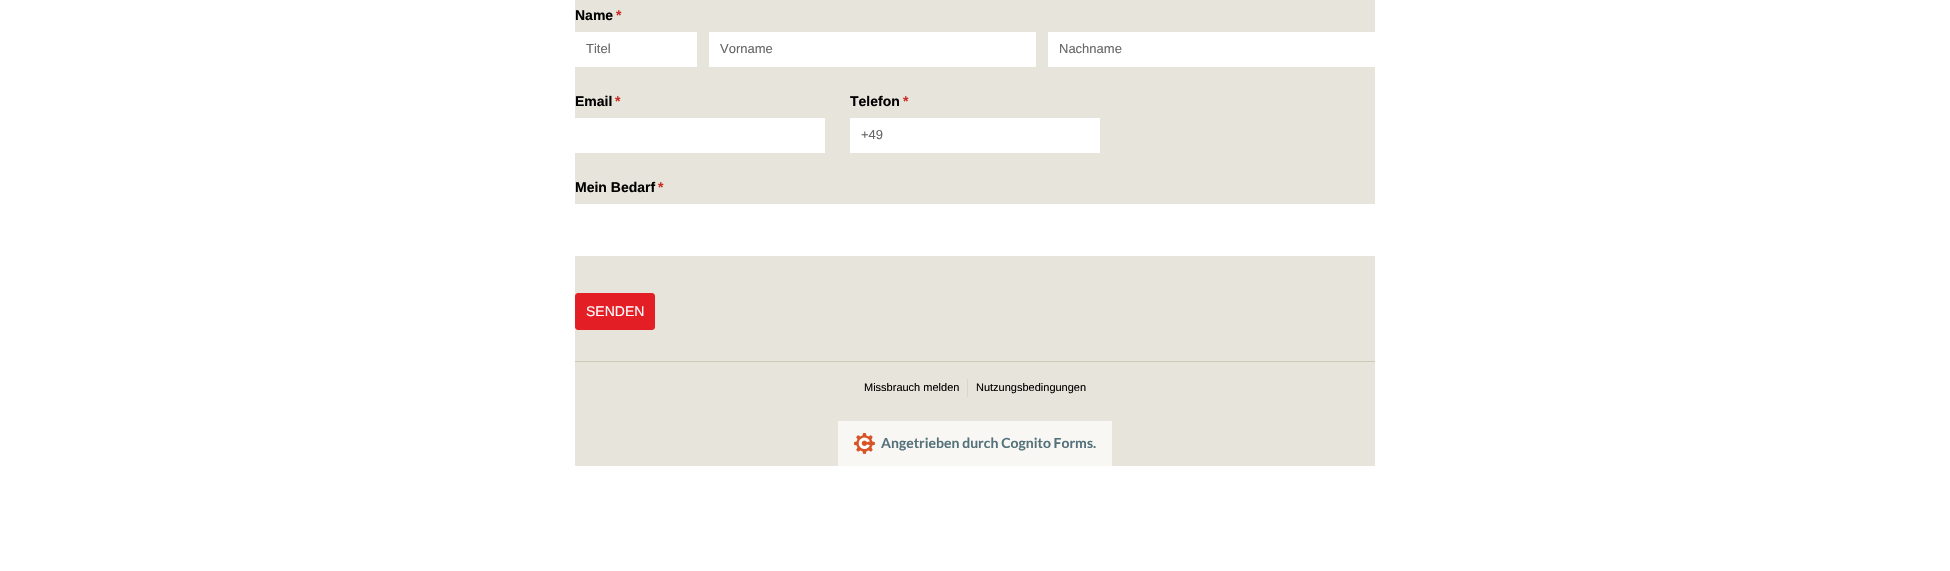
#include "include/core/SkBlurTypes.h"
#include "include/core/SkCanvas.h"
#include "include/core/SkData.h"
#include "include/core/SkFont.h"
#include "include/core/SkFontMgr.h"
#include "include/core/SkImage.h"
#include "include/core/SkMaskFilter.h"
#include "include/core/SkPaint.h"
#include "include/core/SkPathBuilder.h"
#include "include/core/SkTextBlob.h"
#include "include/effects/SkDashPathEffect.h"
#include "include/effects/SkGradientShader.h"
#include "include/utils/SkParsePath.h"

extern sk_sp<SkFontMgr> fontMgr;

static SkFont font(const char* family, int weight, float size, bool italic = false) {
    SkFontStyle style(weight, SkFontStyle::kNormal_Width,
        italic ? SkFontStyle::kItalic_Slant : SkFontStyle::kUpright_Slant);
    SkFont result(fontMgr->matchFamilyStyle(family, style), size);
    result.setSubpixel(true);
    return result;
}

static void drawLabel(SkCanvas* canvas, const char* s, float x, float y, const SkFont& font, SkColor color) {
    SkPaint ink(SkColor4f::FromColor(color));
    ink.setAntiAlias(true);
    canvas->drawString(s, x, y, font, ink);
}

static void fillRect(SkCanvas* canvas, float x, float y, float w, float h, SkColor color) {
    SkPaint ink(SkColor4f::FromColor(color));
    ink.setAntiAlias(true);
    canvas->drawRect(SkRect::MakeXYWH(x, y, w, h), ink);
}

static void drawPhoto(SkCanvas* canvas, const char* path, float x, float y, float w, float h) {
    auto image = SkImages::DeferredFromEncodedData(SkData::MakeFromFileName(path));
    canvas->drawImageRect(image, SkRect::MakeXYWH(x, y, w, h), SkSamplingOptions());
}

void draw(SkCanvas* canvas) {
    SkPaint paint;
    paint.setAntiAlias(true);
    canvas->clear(0xFFFFFFFF);
    fillRect(canvas, 575, 0, 800, 466, 0xFFE7E4DB);
    SkFont font1 = font("Liberation Sans", 700, 14);
    drawLabel(canvas, "Name", 575, 20, font1, 0xFF000000);
    drawLabel(canvas, "*", 616, 20, font1, 0xFFCC2A24);
    fillRect(canvas, 575, 32, 122, 35, 0xFFFFFFFF);
    SkFont font2 = font("Liberation Sans", 400, 13);
    drawLabel(canvas, "Titel", 586, 53, font2, 0xFF666666);
    fillRect(canvas, 709, 32, 327, 35, 0xFFFFFFFF);
    drawLabel(canvas, "Vorname", 720, 53, font2, 0xFF666666);
    fillRect(canvas, 1048, 32, 327, 35, 0xFFFFFFFF);
    drawLabel(canvas, "Nachname", 1059, 53, font2, 0xFF666666);
    drawLabel(canvas, "Email", 575, 106, font1, 0xFF000000);
    drawLabel(canvas, "*", 615, 106, font1, 0xFFCC2A24);
    fillRect(canvas, 575, 118, 250, 35, 0xFFFFFFFF);
    drawLabel(canvas, "Telefon", 850, 106, font1, 0xFF000000);
    drawLabel(canvas, "*", 903, 106, font1, 0xFFCC2A24);
    fillRect(canvas, 850, 118, 250, 35, 0xFFFFFFFF);
    drawLabel(canvas, "+49", 861, 139, font2, 0xFF666666);
    drawLabel(canvas, "Mein Bedarf", 575, 192, font1, 0xFF000000);
    drawLabel(canvas, "*", 658, 192, font1, 0xFFCC2A24);
    fillRect(canvas, 575, 204, 800, 52, 0xFFFFFFFF);
    paint.setColor(0xFFE31E24);
    canvas->drawRoundRect(SkRect::MakeXYWH(575.5f, 293.5f, 79, 36), 2.5f, 2.5f, paint);
    paint.setStroke(true);
    paint.setStrokeWidth(1);
    canvas->drawRoundRect(SkRect::MakeXYWH(575.5f, 293.5f, 79, 36), 2.5f, 2.5f, paint);
    SkFont font3 = font("Liberation Sans", 400, 14);
    drawLabel(canvas, "SENDEN", 586, 316, font3, 0xFFFFFFFF);
    fillRect(canvas, 575, 361, 800, 1, 0xFFCEC8B6);
    SkFont font4 = font("Liberation Sans", 400, 11);
    drawLabel(canvas, "Missbrauch melden", 864, 391, font4, 0xFF000000);
    fillRect(canvas, 967, 379, 1, 18, 0xFFDBD6C8);
    drawLabel(canvas, "Nutzungsbedingungen", 976, 391, font4, 0xFF000000);
    fillRect(canvas, 838, 421, 274, 45, 0xFFF8F7F4);
    drawPhoto(canvas, "assets/img1.png", 854, 433, 21, 21);
    SkFont font5 = font("Lato", 700, 14);
    drawLabel(canvas, "Angetrieben durch Cognito Forms.", 881, 448, font5, 0xFF55727B);
}
